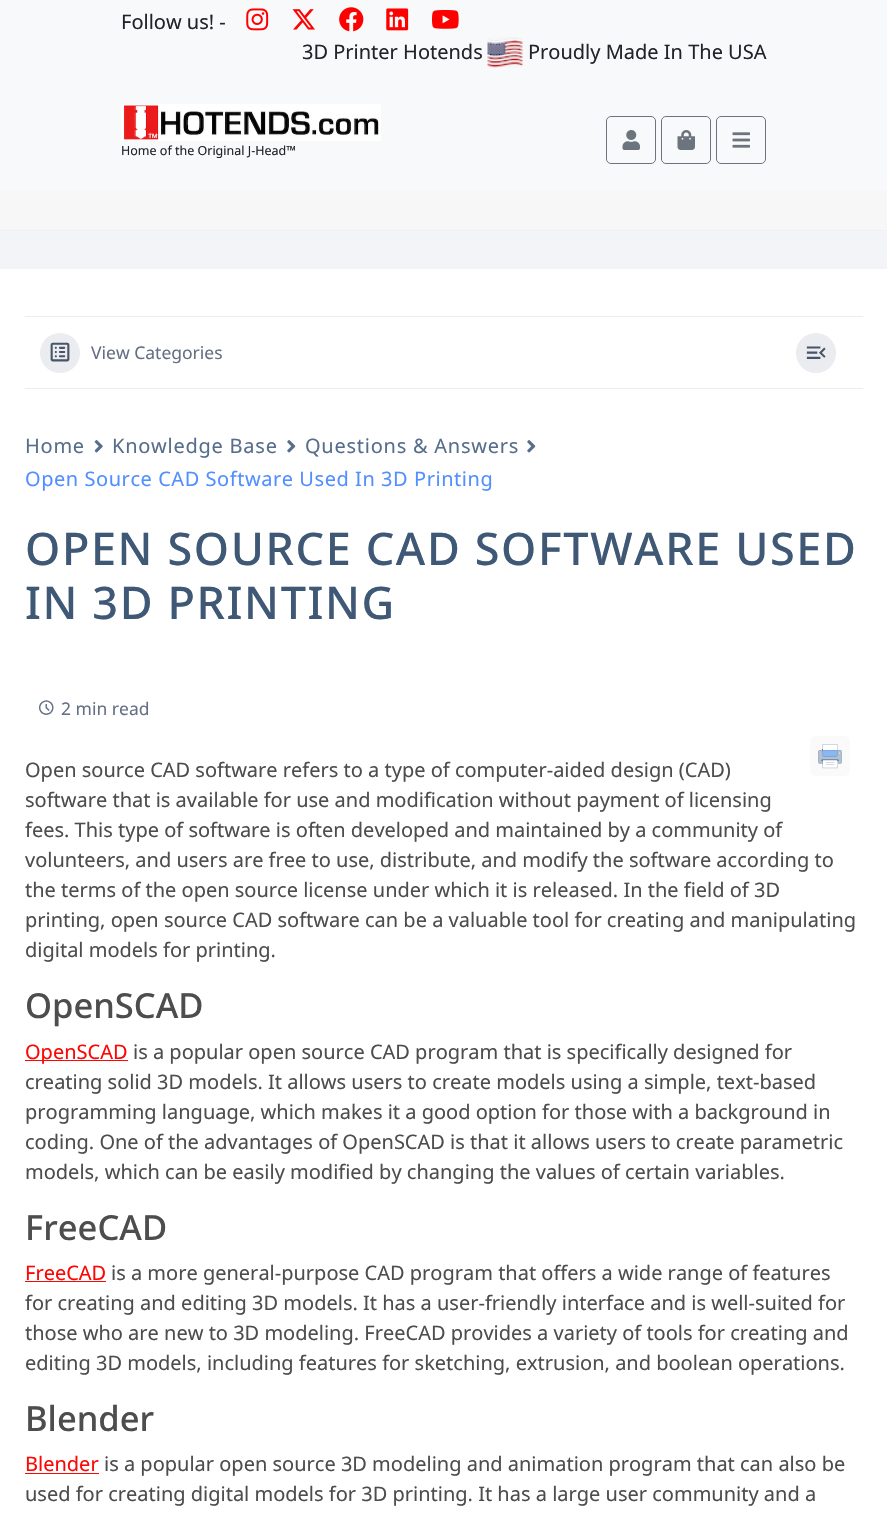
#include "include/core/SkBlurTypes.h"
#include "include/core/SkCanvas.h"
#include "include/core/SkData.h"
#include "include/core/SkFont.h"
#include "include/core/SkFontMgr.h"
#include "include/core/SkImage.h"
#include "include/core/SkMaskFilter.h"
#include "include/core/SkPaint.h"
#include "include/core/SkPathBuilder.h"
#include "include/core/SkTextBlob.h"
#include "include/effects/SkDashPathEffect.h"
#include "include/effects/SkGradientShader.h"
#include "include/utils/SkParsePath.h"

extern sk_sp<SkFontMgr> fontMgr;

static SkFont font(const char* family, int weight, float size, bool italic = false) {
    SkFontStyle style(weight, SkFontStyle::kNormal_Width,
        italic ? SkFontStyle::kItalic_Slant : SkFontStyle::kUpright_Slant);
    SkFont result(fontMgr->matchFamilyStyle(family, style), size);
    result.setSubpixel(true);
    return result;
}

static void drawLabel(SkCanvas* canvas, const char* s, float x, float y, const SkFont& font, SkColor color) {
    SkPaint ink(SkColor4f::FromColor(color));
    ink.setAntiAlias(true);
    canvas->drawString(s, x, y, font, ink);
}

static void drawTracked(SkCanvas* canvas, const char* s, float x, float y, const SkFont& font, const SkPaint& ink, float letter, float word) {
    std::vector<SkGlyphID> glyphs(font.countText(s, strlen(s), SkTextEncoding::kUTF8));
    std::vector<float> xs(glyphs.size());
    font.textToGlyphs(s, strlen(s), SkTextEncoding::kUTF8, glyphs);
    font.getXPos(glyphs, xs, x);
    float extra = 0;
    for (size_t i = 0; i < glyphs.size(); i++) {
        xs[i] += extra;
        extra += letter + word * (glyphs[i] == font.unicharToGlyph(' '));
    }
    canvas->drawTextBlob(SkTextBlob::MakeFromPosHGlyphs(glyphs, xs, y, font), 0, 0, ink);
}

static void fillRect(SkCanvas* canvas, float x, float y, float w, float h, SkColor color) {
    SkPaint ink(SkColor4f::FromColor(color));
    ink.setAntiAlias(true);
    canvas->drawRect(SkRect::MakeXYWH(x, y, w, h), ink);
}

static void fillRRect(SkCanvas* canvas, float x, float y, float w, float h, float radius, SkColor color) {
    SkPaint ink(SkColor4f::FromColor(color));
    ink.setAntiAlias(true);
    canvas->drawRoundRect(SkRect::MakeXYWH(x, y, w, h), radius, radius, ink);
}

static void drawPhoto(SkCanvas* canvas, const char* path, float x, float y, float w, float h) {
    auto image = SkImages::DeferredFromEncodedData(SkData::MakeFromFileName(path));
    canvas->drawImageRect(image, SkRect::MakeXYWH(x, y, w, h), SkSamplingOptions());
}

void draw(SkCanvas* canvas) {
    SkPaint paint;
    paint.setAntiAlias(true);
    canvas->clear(0xFFF2F4F7);
    fillRect(canvas, 0, 0, 887, 190, 0xFFF8F9FA);
    SkFont font1 = font("Noto Sans", 400, 20);
    drawLabel(canvas, "Follow us! -", 121, 29, font1, 0xFF212529);
    drawPhoto(canvas, "assets/img1.png", 246, 8, 23, 23);
    drawPhoto(canvas, "assets/img2.png", 292, 9, 23, 21);
    drawPhoto(canvas, "assets/img3.png", 339, 7, 25, 25);
    drawPhoto(canvas, "assets/img4.png", 386, 8, 23, 23);
    drawPhoto(canvas, "assets/img5.png", 432, 10, 27, 19);
    drawLabel(canvas, "3D Printer Hotends", 302, 59, font1, 0xFF212529);
    drawPhoto(canvas, "assets/img6.png", 487, 37, 36, 31);
    drawLabel(canvas, "Proudly Made In The USA", 528, 59, font1, 0xFF212529);
    drawPhoto(canvas, "assets/img7.png", 121, 104, 260, 37);
    SkFont font2 = font("Noto Sans", 400, 12.5f);
    drawLabel(canvas, "Home of the Original J-Head™", 121, 155, font2, 0xFF212529);
    paint.setStroke(true);
    paint.setStrokeWidth(1);
    paint.setColor(0xFF6C757D);
    canvas->drawRoundRect(SkRect::MakeXYWH(606.5f, 116.5f, 49, 47), 4.5f, 4.5f, paint);
    drawPhoto(canvas, "assets/img8.png", 622, 130, 18, 20);
    canvas->drawRoundRect(SkRect::MakeXYWH(661.5f, 116.5f, 49, 47), 4.5f, 4.5f, paint);
    drawPhoto(canvas, "assets/img9.png", 677, 130, 18, 20);
    canvas->drawRoundRect(SkRect::MakeXYWH(716.5f, 116.5f, 49, 47), 4.5f, 4.5f, paint);
    drawPhoto(canvas, "assets/img10.png", 732, 132, 18, 16);
    fillRect(canvas, 0, 190, 887, 40, 0xFFF7F7F7);
    fillRect(canvas, 0, 230, 887, 1, 0xFFF1F1F1);
    fillRect(canvas, 0, 269, 887, 1245, 0xFFFFFFFF);
    fillRect(canvas, 25, 316, 838, 1, 0xFFEAECF0);
    fillRect(canvas, 25, 388, 838, 1, 0xFFEAECF0);
    paint.setStroke(false);
    paint.setColor(0xFFEAECF0);
    canvas->drawCircle(60, 353, 20, paint);
    drawPhoto(canvas, "assets/img11.png", 50, 342, 20, 20);
    SkFont font3 = font("Noto Sans", 400, 17.5f);
    drawLabel(canvas, "View Categories", 91, 359, font3, 0xFF667085);
    canvas->drawCircle(816, 353, 20, paint);
    drawPhoto(canvas, "assets/img12.png", 806, 346, 20, 13);
    paint.setColor(0xFF566E8B);
    drawTracked(canvas, "Home", 25, 453, font1, paint, 0.75f, 0);
    drawPhoto(canvas, "assets/img13.png", 94, 440, 9, 13);
    drawTracked(canvas, "Knowledge Base", 112, 453, font1, paint, 0.75f, 0);
    drawPhoto(canvas, "assets/img14.png", 287, 440, 9, 13);
    drawTracked(canvas, "Questions & Answers", 305, 453, font1, paint, 0.75f, 0);
    drawPhoto(canvas, "assets/img14.png", 527, 440, 9, 13);
    paint.setColor(0xFF528FFF);
    drawTracked(canvas, "Open Source CAD Software Used In 3D Printing", 25, 486, font1, paint, 0.55f, 0);
    SkFont font4 = font("Noto Sans", 500, 45);
    paint.setColor(0xFF3F5876);
    drawTracked(canvas, "OPEN SOURCE CAD SOFTWARE USED", 25, 565, font4, paint, 1.6f, 0);
    drawTracked(canvas, "IN 3D PRINTING", 25, 619, font4, paint, 1.6f, 0);
    drawPhoto(canvas, "assets/img15.png", 39, 700, 15, 15);
    drawLabel(canvas, "2 min read", 61, 715, font3, 0xFF667085);
    fillRRect(canvas, 810, 736, 40, 40, 6, 0xFFFAFAFA);
    drawPhoto(canvas, "assets/img16.png", 818, 744, 24, 25);
    drawLabel(canvas, "Open source CAD software refers to a type of computer-aided design (CAD)", 25, 777, font1, 0xFF4D4D4D);
    drawLabel(canvas, "software that is available for use and modification without payment of licensing", 25, 807, font1, 0xFF4D4D4D);
    drawLabel(canvas, "fees. This type of software is often developed and maintained by a community of", 25, 837, font1, 0xFF4D4D4D);
    drawLabel(canvas, "volunteers, and users are free to use, distribute, and modify the software according to", 25, 867, font1, 0xFF4D4D4D);
    drawLabel(canvas, "the terms of the open source license under which it is released. In the field of 3D", 25, 897, font1, 0xFF4D4D4D);
    drawLabel(canvas, "printing, open source CAD software can be a valuable tool for creating and manipulating", 25, 927, font1, 0xFF4D4D4D);
    drawLabel(canvas, "digital models for printing.", 25, 957, font1, 0xFF4D4D4D);
    SkFont font5 = font("Noto Sans", 500, 34.5f);
    drawLabel(canvas, "OpenSCAD", 25, 1018, font5, 0xFF4D4D4D);
    fillRect(canvas, 25, 1060, 103, 1, 0xFFFC0703);
    drawLabel(canvas, "OpenSCAD", 25, 1059, font1, 0xFFFC0703);
    drawLabel(canvas, "is a popular open source CAD program that is specifically designed for", 133, 1059, font1, 0xFF4D4D4D);
    drawLabel(canvas, "creating solid 3D models. It allows users to create models using a simple, text-based", 25, 1089, font1, 0xFF4D4D4D);
    drawLabel(canvas, "programming language, which makes it a good option for those with a background in", 25, 1119, font1, 0xFF4D4D4D);
    drawLabel(canvas, "coding. One of the advantages of OpenSCAD is that it allows users to create parametric", 25, 1149, font1, 0xFF4D4D4D);
    drawLabel(canvas, "models, which can be easily modified by changing the values of certain variables.", 25, 1179, font1, 0xFF4D4D4D);
    drawLabel(canvas, "FreeCAD", 25, 1240, font5, 0xFF4D4D4D);
    drawLabel(canvas, "FreeCAD", 25, 1280, font1, 0xFFFC0703);
    fillRect(canvas, 25, 1281, 81, 1, 0xFFFC0703);
    drawLabel(canvas, "is a more general-purpose CAD program that offers a wide range of features", 111, 1280, font1, 0xFF4D4D4D);
    drawLabel(canvas, "for creating and editing 3D models. It has a user-friendly interface and is well-suited for", 25, 1310, font1, 0xFF4D4D4D);
    drawLabel(canvas, "those who are new to 3D modeling. FreeCAD provides a variety of tools for creating and", 25, 1340, font1, 0xFF4D4D4D);
    drawLabel(canvas, "editing 3D models, including features for sketching, extrusion, and boolean operations.", 25, 1370, font1, 0xFF4D4D4D);
    drawLabel(canvas, "Blender", 25, 1431, font5, 0xFF4D4D4D);
    drawLabel(canvas, "Blender", 25, 1471, font1, 0xFFFC0703);
    fillRect(canvas, 25, 1473, 74, 1, 0xFFFC0703);
    drawLabel(canvas, "is a popular open source 3D modeling and animation program that can also be", 104, 1471, font1, 0xFF4D4D4D);
    drawLabel(canvas, "used for creating digital models for 3D printing. It has a large user community and a", 25, 1501, font1, 0xFF4D4D4D);
}
